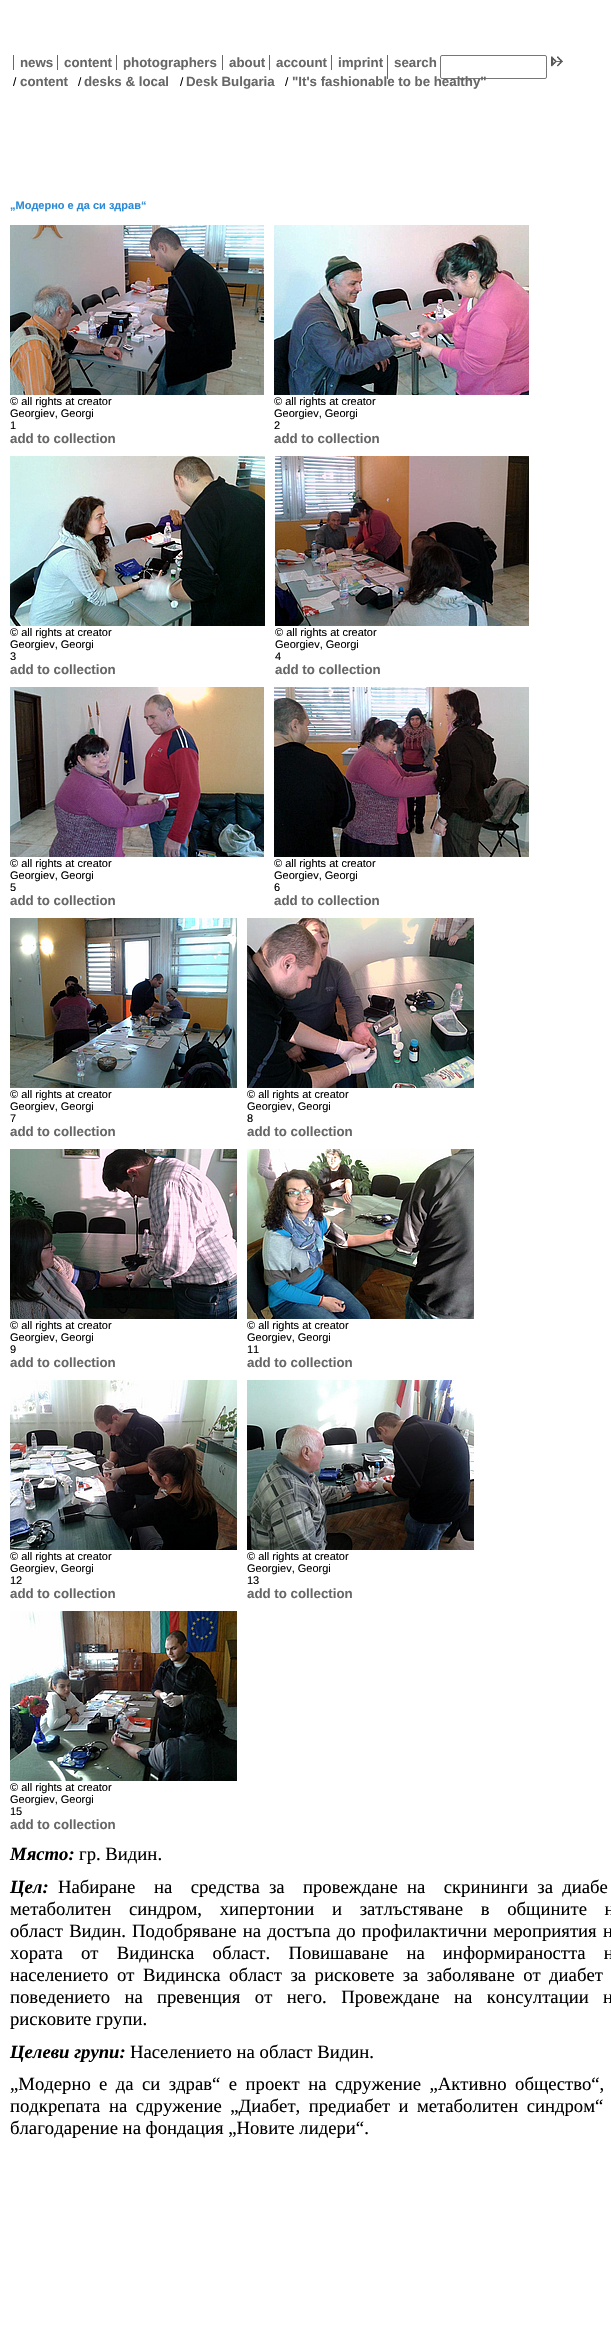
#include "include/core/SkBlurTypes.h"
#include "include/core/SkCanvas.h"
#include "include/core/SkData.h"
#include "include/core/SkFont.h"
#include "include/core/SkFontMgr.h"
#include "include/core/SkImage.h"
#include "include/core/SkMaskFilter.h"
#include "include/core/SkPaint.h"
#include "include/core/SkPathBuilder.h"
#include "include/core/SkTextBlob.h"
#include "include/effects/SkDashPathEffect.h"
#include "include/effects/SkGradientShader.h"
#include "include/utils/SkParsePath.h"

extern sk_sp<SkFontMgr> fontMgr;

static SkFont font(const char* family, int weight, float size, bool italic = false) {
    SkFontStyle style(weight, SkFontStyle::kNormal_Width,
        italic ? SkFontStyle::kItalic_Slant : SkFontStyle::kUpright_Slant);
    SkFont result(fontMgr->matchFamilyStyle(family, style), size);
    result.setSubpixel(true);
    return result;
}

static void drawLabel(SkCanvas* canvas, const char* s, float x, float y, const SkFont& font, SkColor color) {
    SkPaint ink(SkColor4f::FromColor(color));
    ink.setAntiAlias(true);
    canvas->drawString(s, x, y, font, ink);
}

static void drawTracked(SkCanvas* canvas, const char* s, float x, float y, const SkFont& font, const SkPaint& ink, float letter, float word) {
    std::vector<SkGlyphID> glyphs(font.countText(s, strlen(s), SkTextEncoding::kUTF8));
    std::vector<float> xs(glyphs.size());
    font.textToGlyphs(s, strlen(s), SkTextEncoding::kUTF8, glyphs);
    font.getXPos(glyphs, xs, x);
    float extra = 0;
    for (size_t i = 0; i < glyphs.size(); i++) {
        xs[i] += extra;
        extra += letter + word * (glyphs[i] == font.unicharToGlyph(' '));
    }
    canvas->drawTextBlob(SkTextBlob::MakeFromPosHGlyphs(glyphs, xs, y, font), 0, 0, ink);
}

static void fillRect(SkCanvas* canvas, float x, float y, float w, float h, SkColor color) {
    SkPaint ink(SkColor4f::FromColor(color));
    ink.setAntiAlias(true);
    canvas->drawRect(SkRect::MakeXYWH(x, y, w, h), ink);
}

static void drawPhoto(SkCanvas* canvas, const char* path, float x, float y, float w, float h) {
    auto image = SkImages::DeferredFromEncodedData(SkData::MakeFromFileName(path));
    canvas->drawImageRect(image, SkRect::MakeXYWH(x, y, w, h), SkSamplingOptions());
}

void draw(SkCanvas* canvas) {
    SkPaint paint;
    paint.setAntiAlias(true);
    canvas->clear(0xFFFFFFFF);
    fillRect(canvas, 13, 55, 1, 15, 0xFF676767);
    SkFont font1 = font("Liberation Sans", 700, 13.3f);
    drawLabel(canvas, "news", 20, 67, font1, 0xFF676767);
    fillRect(canvas, 57, 55, 1, 15, 0xFF676767);
    drawLabel(canvas, "content", 64, 67, font1, 0xFF676767);
    fillRect(canvas, 116, 55, 1, 15, 0xFF676767);
    drawLabel(canvas, "photographers", 123, 67, font1, 0xFF676767);
    fillRect(canvas, 222, 55, 1, 15, 0xFF676767);
    drawLabel(canvas, "about", 229, 67, font1, 0xFF676767);
    fillRect(canvas, 269, 55, 1, 15, 0xFF676767);
    drawLabel(canvas, "account", 276, 67, font1, 0xFF676767);
    fillRect(canvas, 331, 55, 1, 15, 0xFF676767);
    drawLabel(canvas, "imprint", 338, 67, font1, 0xFF676767);
    fillRect(canvas, 387, 55, 1, 24, 0xFF676767);
    drawLabel(canvas, "search", 394, 67, font1, 0xFF676767);
    paint.setStroke(true);
    paint.setStrokeWidth(1);
    paint.setColor(0xFF767676);
    canvas->drawRoundRect(SkRect::MakeXYWH(440.5f, 55.5f, 106, 23), 1.5f, 1.5f, paint);
    drawPhoto(canvas, "assets/img1.png", 551, 56, 12, 11);
    SkFont font2 = font("Liberation Sans", 400, 12);
    drawLabel(canvas, "/", 13, 86, font2, 0xFF000000);
    drawLabel(canvas, "content", 20, 86, font1, 0xFF676767);
    drawLabel(canvas, "/", 78, 86, font2, 0xFF000000);
    drawLabel(canvas, "desks & local", 84, 86, font1, 0xFF676767);
    drawLabel(canvas, "/", 180, 86, font2, 0xFF000000);
    drawLabel(canvas, "Desk Bulgaria", 186, 86, font1, 0xFF676767);
    drawLabel(canvas, "/", 285, 86, font2, 0xFF000000);
    drawLabel(canvas, "\"It's fashionable to be healthy\"", 292, 86, font1, 0xFF676767);
    SkFont font3 = font("Liberation Sans", 700, 11);
    drawLabel(canvas, "„Модерно е да си здрав“", 10, 209, font3, 0xFF2B8BD6);
    drawPhoto(canvas, "assets/img2.png", 10, 225, 254, 170);
    SkFont font4 = font("Liberation Sans", 400, 11);
    drawLabel(canvas, "© all rights at creator", 10, 405, font4, 0xFF000000);
    drawLabel(canvas, "Georgiev, Georgi", 10, 417, font4, 0xFF000000);
    drawLabel(canvas, "1", 10, 429, font4, 0xFF000000);
    drawLabel(canvas, "add to collection", 10, 443, font1, 0xFF676767);
    drawPhoto(canvas, "assets/img3.png", 274, 225, 255, 170);
    drawLabel(canvas, "© all rights at creator", 274, 405, font4, 0xFF000000);
    drawLabel(canvas, "Georgiev, Georgi", 274, 417, font4, 0xFF000000);
    drawLabel(canvas, "2", 274, 429, font4, 0xFF000000);
    drawLabel(canvas, "add to collection", 274, 443, font1, 0xFF676767);
    drawPhoto(canvas, "assets/img4.png", 10, 456, 255, 170);
    drawLabel(canvas, "© all rights at creator", 10, 636, font4, 0xFF000000);
    drawLabel(canvas, "Georgiev, Georgi", 10, 648, font4, 0xFF000000);
    drawLabel(canvas, "3", 10, 660, font4, 0xFF000000);
    drawLabel(canvas, "add to collection", 10, 674, font1, 0xFF676767);
    drawPhoto(canvas, "assets/img5.png", 275, 456, 254, 170);
    drawLabel(canvas, "© all rights at creator", 275, 636, font4, 0xFF000000);
    drawLabel(canvas, "Georgiev, Georgi", 275, 648, font4, 0xFF000000);
    drawLabel(canvas, "4", 275, 660, font4, 0xFF000000);
    drawLabel(canvas, "add to collection", 275, 674, font1, 0xFF676767);
    drawPhoto(canvas, "assets/img6.png", 10, 687, 254, 170);
    drawLabel(canvas, "© all rights at creator", 10, 867, font4, 0xFF000000);
    drawLabel(canvas, "Georgiev, Georgi", 10, 879, font4, 0xFF000000);
    drawLabel(canvas, "5", 10, 891, font4, 0xFF000000);
    drawLabel(canvas, "add to collection", 10, 905, font1, 0xFF676767);
    drawPhoto(canvas, "assets/img7.png", 274, 687, 255, 170);
    drawLabel(canvas, "© all rights at creator", 274, 867, font4, 0xFF000000);
    drawLabel(canvas, "Georgiev, Georgi", 274, 879, font4, 0xFF000000);
    drawLabel(canvas, "6", 274, 891, font4, 0xFF000000);
    drawLabel(canvas, "add to collection", 274, 905, font1, 0xFF676767);
    drawPhoto(canvas, "assets/img8.png", 10, 918, 227, 170);
    drawLabel(canvas, "© all rights at creator", 10, 1098, font4, 0xFF000000);
    drawLabel(canvas, "Georgiev, Georgi", 10, 1110, font4, 0xFF000000);
    drawLabel(canvas, "7", 10, 1122, font4, 0xFF000000);
    drawLabel(canvas, "add to collection", 10, 1136, font1, 0xFF676767);
    drawPhoto(canvas, "assets/img9.png", 247, 918, 227, 170);
    drawLabel(canvas, "© all rights at creator", 247, 1098, font4, 0xFF000000);
    drawLabel(canvas, "Georgiev, Georgi", 247, 1110, font4, 0xFF000000);
    drawLabel(canvas, "8", 247, 1122, font4, 0xFF000000);
    drawLabel(canvas, "add to collection", 247, 1136, font1, 0xFF676767);
    drawPhoto(canvas, "assets/img10.png", 10, 1149, 227, 170);
    drawLabel(canvas, "© all rights at creator", 10, 1329, font4, 0xFF000000);
    drawLabel(canvas, "Georgiev, Georgi", 10, 1341, font4, 0xFF000000);
    drawLabel(canvas, "9", 10, 1353, font4, 0xFF000000);
    drawLabel(canvas, "add to collection", 10, 1367, font1, 0xFF676767);
    drawPhoto(canvas, "assets/img11.png", 247, 1149, 227, 170);
    drawLabel(canvas, "© all rights at creator", 247, 1329, font4, 0xFF000000);
    drawLabel(canvas, "Georgiev, Georgi", 247, 1341, font4, 0xFF000000);
    drawLabel(canvas, "11", 247, 1353, font4, 0xFF000000);
    drawLabel(canvas, "add to collection", 247, 1367, font1, 0xFF676767);
    drawPhoto(canvas, "assets/img12.png", 10, 1380, 227, 170);
    drawLabel(canvas, "© all rights at creator", 10, 1560, font4, 0xFF000000);
    drawLabel(canvas, "Georgiev, Georgi", 10, 1572, font4, 0xFF000000);
    drawLabel(canvas, "12", 10, 1584, font4, 0xFF000000);
    drawLabel(canvas, "add to collection", 10, 1598, font1, 0xFF676767);
    drawPhoto(canvas, "assets/img13.png", 247, 1380, 227, 170);
    drawLabel(canvas, "© all rights at creator", 247, 1560, font4, 0xFF000000);
    drawLabel(canvas, "Georgiev, Georgi", 247, 1572, font4, 0xFF000000);
    drawLabel(canvas, "13", 247, 1584, font4, 0xFF000000);
    drawLabel(canvas, "add to collection", 247, 1598, font1, 0xFF676767);
    drawPhoto(canvas, "assets/img14.png", 10, 1611, 227, 170);
    drawLabel(canvas, "© all rights at creator", 10, 1791, font4, 0xFF000000);
    drawLabel(canvas, "Georgiev, Georgi", 10, 1803, font4, 0xFF000000);
    drawLabel(canvas, "15", 10, 1815, font4, 0xFF000000);
    drawLabel(canvas, "add to collection", 10, 1829, font1, 0xFF676767);
    SkFont font5 = font("Liberation Serif", 700, 18.7f, true);
    drawLabel(canvas, "Място:", 10, 1860, font5, 0xFF000000);
    SkFont font6 = font("Liberation Serif", 400, 18.7f);
    drawLabel(canvas, "гр. Видин.", 79, 1860, font6, 0xFF000000);
    drawLabel(canvas, "Цел:", 10, 1893, font5, 0xFF000000);
    drawLabel(canvas, "Набиране", 58, 1893, font6, 0xFF000000);
    paint.setStroke(false);
    paint.setColor(0xFF000000);
    drawTracked(canvas, "на  средства за  провеждане на  скрининги за диабе", 154, 1893, font6, paint, 0, 4.5f);
    drawLabel(canvas, "метаболитен", 10, 1915, font6, 0xFF000000);
    drawTracked(canvas, "синдром, хипертонии и затлъстяване в общините н", 129, 1915, font6, paint, 0, 13);
    drawTracked(canvas, "област Видин. Подобряване на достъпа до профилактични мероприятия н", 10, 1937, font6, paint, 0, 1.5f);
    drawTracked(canvas, "хората от Видинска област. Повишаване на информираността н", 10, 1959, font6, paint, 0, 13.5f);
    drawLabel(canvas, "населението", 10, 1981, font6, 0xFF000000);
    drawTracked(canvas, "от Видинска област за рисковете за заболяване от диабет", 117, 1981, font6, paint, 0, 3.75f);
    drawTracked(canvas, "поведението на", 10, 2003, font6, paint, 0, 9.75f);
    drawTracked(canvas, "превенция от него. Провеждане на консултации н", 157, 2003, font6, paint, 0, 9.75f);
    drawLabel(canvas, "рисковите групи.", 10, 2025, font6, 0xFF000000);
    drawLabel(canvas, "Целеви групи:", 10, 2058, font5, 0xFF000000);
    drawLabel(canvas, "Населението на област Видин.", 130, 2058, font6, 0xFF000000);
    drawLabel(canvas, "„Модерно", 10, 2090, font6, 0xFF000000);
    drawTracked(canvas, "е да си здрав“ е проект на сдружение „Активно общество“,", 99, 2090, font6, paint, 0, 3.75f);
    drawLabel(canvas, "подкрепата", 10, 2112, font6, 0xFF000000);
    drawTracked(canvas, "на сдружение „Диабет, предиабет и метаболитен синдром“", 109, 2112, font6, paint, 0, 3.75f);
    drawLabel(canvas, "благодарение на фондация „Новите лидери“.", 10, 2134, font6, 0xFF000000);
}
